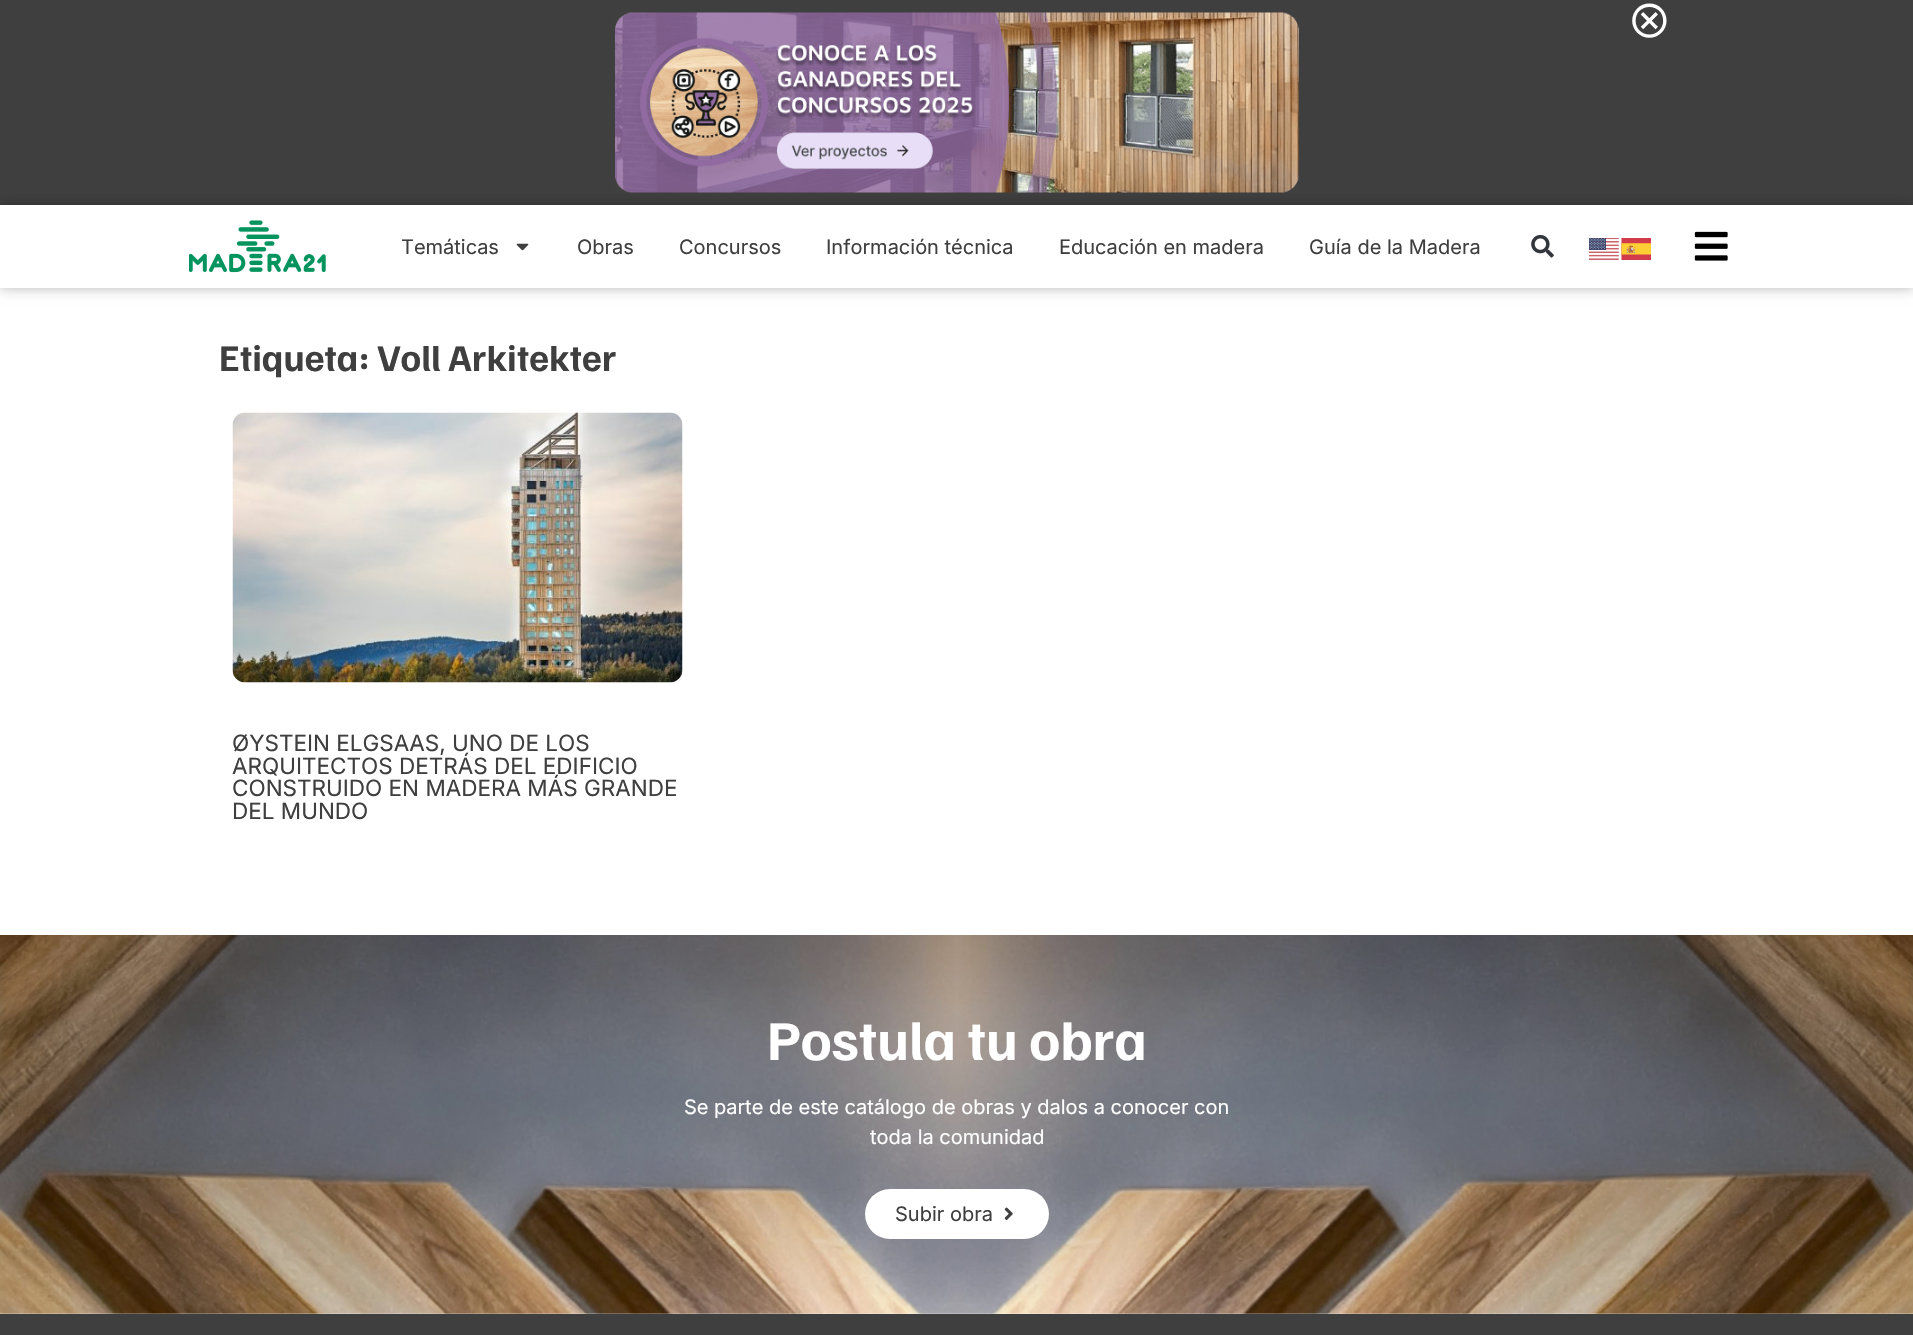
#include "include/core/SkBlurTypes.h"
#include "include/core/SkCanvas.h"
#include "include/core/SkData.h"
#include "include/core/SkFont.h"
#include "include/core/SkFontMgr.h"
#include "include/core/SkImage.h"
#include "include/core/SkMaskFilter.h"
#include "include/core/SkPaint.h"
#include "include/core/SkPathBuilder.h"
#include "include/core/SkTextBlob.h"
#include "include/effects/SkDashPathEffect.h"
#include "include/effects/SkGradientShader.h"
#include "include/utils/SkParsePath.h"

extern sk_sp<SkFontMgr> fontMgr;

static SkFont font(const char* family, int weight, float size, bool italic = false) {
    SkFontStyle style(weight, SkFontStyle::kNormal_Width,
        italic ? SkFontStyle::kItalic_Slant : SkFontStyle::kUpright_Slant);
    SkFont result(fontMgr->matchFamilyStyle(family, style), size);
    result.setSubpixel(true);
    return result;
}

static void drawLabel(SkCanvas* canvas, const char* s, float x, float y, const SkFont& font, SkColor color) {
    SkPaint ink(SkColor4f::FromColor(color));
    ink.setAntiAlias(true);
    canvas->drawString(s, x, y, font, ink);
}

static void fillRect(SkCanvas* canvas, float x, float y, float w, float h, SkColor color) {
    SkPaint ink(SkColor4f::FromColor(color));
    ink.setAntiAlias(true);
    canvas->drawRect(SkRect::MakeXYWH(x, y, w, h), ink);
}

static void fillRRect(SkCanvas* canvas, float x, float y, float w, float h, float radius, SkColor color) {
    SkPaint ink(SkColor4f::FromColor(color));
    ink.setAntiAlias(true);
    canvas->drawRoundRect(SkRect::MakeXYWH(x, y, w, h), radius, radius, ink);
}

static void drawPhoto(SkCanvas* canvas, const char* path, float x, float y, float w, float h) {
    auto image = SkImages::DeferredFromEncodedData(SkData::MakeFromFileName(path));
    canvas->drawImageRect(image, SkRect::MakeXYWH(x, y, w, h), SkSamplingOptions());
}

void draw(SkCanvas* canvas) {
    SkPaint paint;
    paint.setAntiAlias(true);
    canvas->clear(0xFFFFFFFF);
    fillRect(canvas, 0, 0, 1913, 205, 0xFF3F3F3F);
    drawPhoto(canvas, "assets/img1.png", 615, 12, 684, 181);
    drawPhoto(canvas, "assets/img2.png", 1632, 3, 35, 35);
    paint.setColor(0x4A000000);
    paint.setMaskFilter(SkMaskFilter::MakeBlur(kNormal_SkBlurStyle, 6));
    canvas->drawRect(SkRect::MakeXYWH(0, 205, 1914, 83), paint);
    paint.setMaskFilter(nullptr);
    fillRect(canvas, 0, 205, 1913, 83, 0xFFFFFFFF);
    drawPhoto(canvas, "assets/img3.png", 189, 220, 137, 53);
    SkFont font1 = font("Inter", 400, 20);
    drawLabel(canvas, "Temáticas", 401, 254, font1, 0xFF3F3F3F);
    drawPhoto(canvas, "assets/img4.png", 516, 243, 13, 8);
    drawLabel(canvas, "Obras", 577, 254, font1, 0xFF3F3F3F);
    drawLabel(canvas, "Concursos", 679, 254, font1, 0xFF3F3F3F);
    drawLabel(canvas, "Información técnica", 826, 254, font1, 0xFF3F3F3F);
    drawLabel(canvas, "Educación en madera", 1059, 254, font1, 0xFF3F3F3F);
    drawLabel(canvas, "Guía de la Madera", 1309, 254, font1, 0xFF3F3F3F);
    drawPhoto(canvas, "assets/img5.png", 1531, 235, 23, 23);
    drawPhoto(canvas, "assets/img6.png", 1589, 238, 30, 22);
    drawPhoto(canvas, "assets/img7.png", 1621, 238, 30, 22);
    drawPhoto(canvas, "assets/img8.png", 1694, 231, 34, 30);
    SkFont font2 = font("Familjen Grotesk", 700, 37.5f);
    drawLabel(canvas, "Etiqueta: Voll Arkitekter", 219, 371, font2, 0xFF3F3F3F);
    drawPhoto(canvas, "assets/img9.png", 232, 412, 451, 271);
    SkFont font3 = font("Inter", 400, 22.5f);
    drawLabel(canvas, "ØYSTEIN ELGSAAS, UNO DE LOS", 232, 751, font3, 0xFF3F3F3F);
    drawLabel(canvas, "ARQUITECTOS DETRÁS DEL EDIFICIO", 232, 774, font3, 0xFF3F3F3F);
    drawLabel(canvas, "CONSTRUIDO EN MADERA MÁS GRANDE", 232, 796, font3, 0xFF3F3F3F);
    drawLabel(canvas, "DEL MUNDO", 232, 819, font3, 0xFF3F3F3F);
    drawPhoto(canvas, "assets/img10.png", 0, 935, 1913, 379);
    SkFont font4 = font("Familjen Grotesk", 700, 56.25f);
    drawLabel(canvas, "Postula tu obra", 767, 1060, font4, 0xFFFFFFFF);
    drawLabel(canvas, "Se parte de este catálogo de obras y dalos a conocer con", 684, 1114, font1, 0xFFFFFFFF);
    drawLabel(canvas, "toda la comunidad", 870, 1144, font1, 0xFFFFFFFF);
    fillRRect(canvas, 865, 1189, 184, 50, 25, 0xFFFFFFFF);
    drawLabel(canvas, "Subir obra", 895, 1221, font1, 0xFF3F3F3F);
    drawPhoto(canvas, "assets/img11.png", 1004, 1207, 9, 13);
    fillRect(canvas, 0, 1314, 1913, 21, 0xFF3F3F3F);
}
